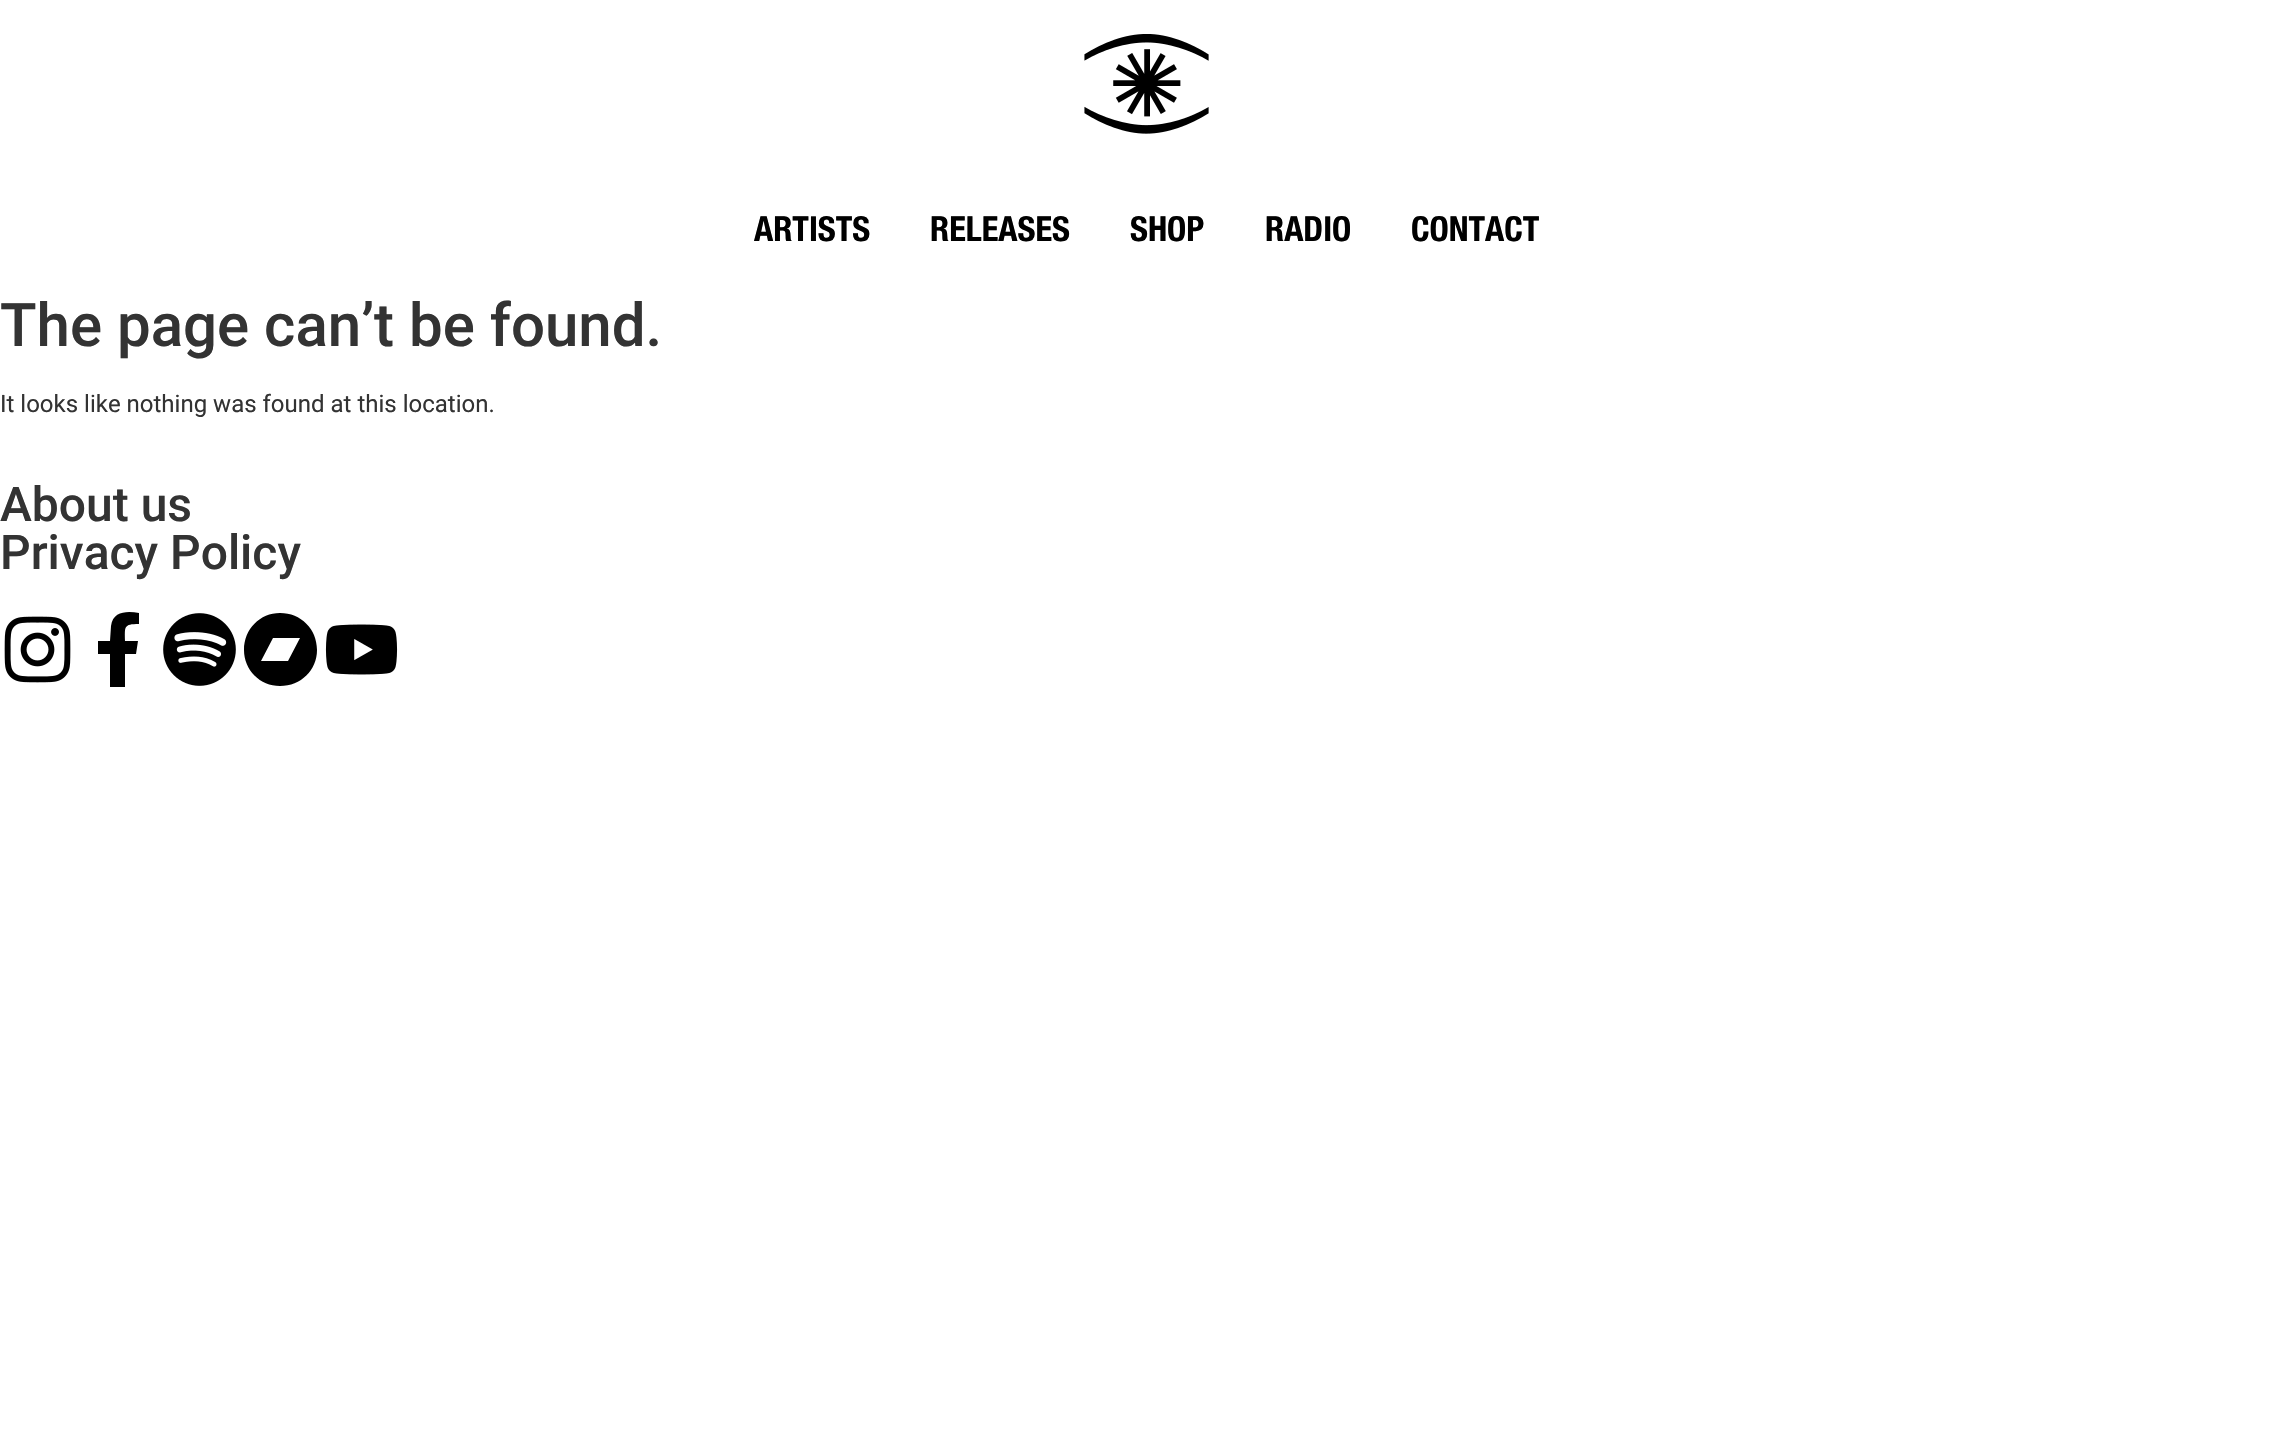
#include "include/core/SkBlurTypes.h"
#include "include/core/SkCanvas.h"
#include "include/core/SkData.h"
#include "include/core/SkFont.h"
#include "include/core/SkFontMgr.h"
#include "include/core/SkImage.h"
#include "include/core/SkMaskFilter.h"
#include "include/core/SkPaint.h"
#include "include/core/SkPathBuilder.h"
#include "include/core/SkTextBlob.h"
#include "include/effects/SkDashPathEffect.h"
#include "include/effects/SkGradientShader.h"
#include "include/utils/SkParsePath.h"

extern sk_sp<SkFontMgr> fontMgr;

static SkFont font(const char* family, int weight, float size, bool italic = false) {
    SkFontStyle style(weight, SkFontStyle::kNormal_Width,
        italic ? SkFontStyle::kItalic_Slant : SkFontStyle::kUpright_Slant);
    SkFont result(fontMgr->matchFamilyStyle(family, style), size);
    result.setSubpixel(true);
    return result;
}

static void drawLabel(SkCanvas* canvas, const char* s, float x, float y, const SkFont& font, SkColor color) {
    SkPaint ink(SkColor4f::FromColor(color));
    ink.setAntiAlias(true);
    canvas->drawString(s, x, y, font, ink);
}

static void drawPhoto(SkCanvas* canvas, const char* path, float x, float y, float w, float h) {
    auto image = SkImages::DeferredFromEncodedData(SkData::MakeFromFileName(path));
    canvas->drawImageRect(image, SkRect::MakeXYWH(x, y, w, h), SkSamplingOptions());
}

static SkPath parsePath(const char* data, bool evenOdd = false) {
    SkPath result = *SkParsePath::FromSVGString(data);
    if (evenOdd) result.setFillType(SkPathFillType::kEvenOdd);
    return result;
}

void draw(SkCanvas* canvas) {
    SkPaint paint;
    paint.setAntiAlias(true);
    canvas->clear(0xFFFFFFFF);
    drawPhoto(canvas, "assets/img1.png", 1084, 34, 125, 100);
    SkFont font1 = font("Helvetica Neue", 700, 34.5f);
    drawLabel(canvas, "ARTISTS", 754, 241, font1, 0xFF000000);
    drawLabel(canvas, "RELEASES", 930, 241, font1, 0xFF000000);
    drawLabel(canvas, "SHOP", 1130, 241, font1, 0xFF000000);
    drawLabel(canvas, "RADIO", 1265, 241, font1, 0xFF000000);
    drawLabel(canvas, "CONTACT", 1411, 241, font1, 0xFF000000);
    SkFont font2 = font("Roboto", 500, 60);
    drawLabel(canvas, "The page can’t be found.", 0, 346, font2, 0xFF333333);
    SkFont font3 = font("Roboto", 400, 24);
    drawLabel(canvas, "It looks like nothing was found at this location.", 0, 412, font3, 0xFF333333);
    SkFont font4 = font("Roboto", 500, 48);
    drawLabel(canvas, "About us", 0, 521, font4, 0xFF333333);
    drawLabel(canvas, "Privacy Policy", 0, 569, font4, 0xFF333333);
    drawPhoto(canvas, "assets/img2.png", 4, 616, 67, 67);
    paint.setColor(0xFF000000);
    canvas->drawPath(parsePath("M136 654L138 641H125C125 627 123 624 139 624V613C127 611 113 611 111 626L110 641H98V654H110V687H125V654Z"), paint);
    drawPhoto(canvas, "assets/img3.png", 163, 613, 73, 73);
    canvas->drawPath(parsePath("M280 613C260 613 244 629 244 650C244 670 260 686 280 686C301 686 317 670 317 650C317 629 301 613 280 613ZM288 661H261L273 638H300Z"), paint);
    drawPhoto(canvas, "assets/img4.png", 325, 624, 73, 51);
}
